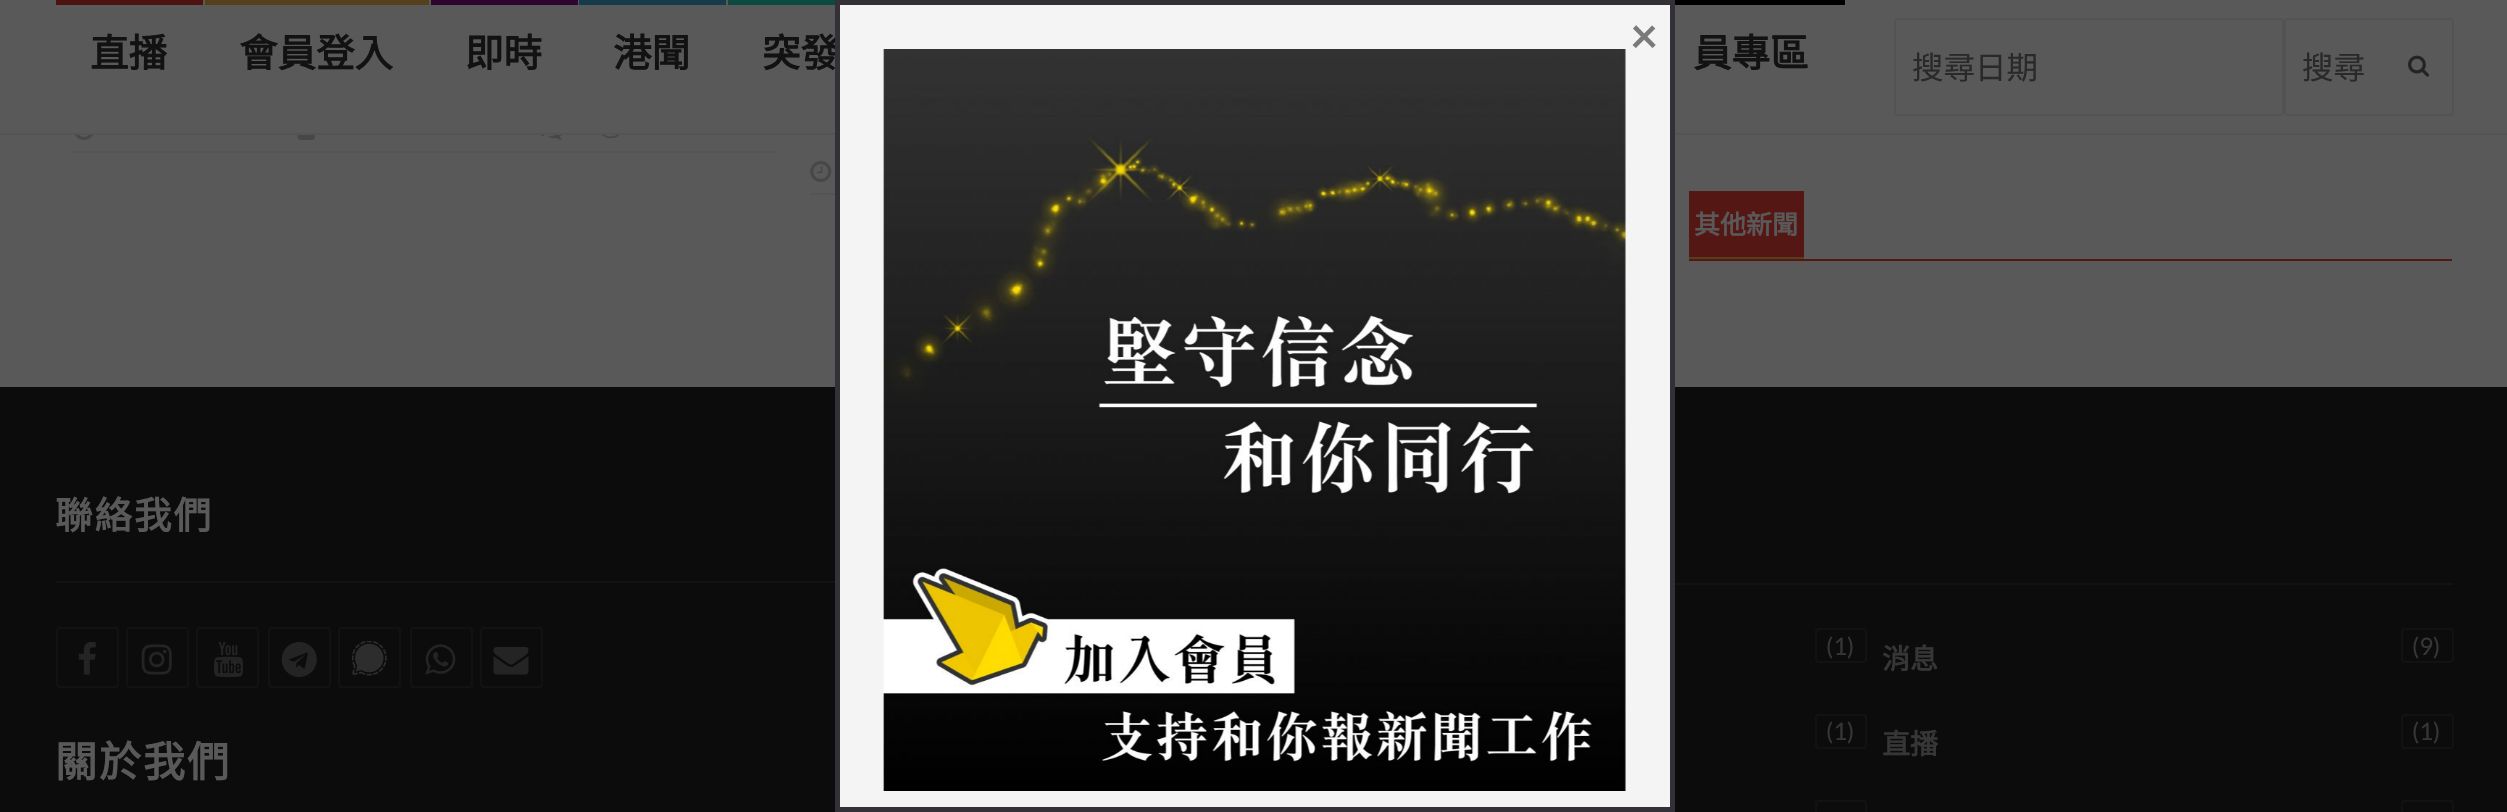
#include "include/core/SkBlurTypes.h"
#include "include/core/SkCanvas.h"
#include "include/core/SkData.h"
#include "include/core/SkFont.h"
#include "include/core/SkFontMgr.h"
#include "include/core/SkImage.h"
#include "include/core/SkMaskFilter.h"
#include "include/core/SkPaint.h"
#include "include/core/SkPathBuilder.h"
#include "include/core/SkTextBlob.h"
#include "include/effects/SkDashPathEffect.h"
#include "include/effects/SkGradientShader.h"
#include "include/utils/SkParsePath.h"

extern sk_sp<SkFontMgr> fontMgr;

static SkFont font(const char* family, int weight, float size, bool italic = false) {
    SkFontStyle style(weight, SkFontStyle::kNormal_Width,
        italic ? SkFontStyle::kItalic_Slant : SkFontStyle::kUpright_Slant);
    SkFont result(fontMgr->matchFamilyStyle(family, style), size);
    result.setSubpixel(true);
    return result;
}

static void drawLabel(SkCanvas* canvas, const char* s, float x, float y, const SkFont& font, SkColor color) {
    SkPaint ink(SkColor4f::FromColor(color));
    ink.setAntiAlias(true);
    canvas->drawString(s, x, y, font, ink);
}

static void drawTracked(SkCanvas* canvas, const char* s, float x, float y, const SkFont& font, const SkPaint& ink, float letter, float word) {
    std::vector<SkGlyphID> glyphs(font.countText(s, strlen(s), SkTextEncoding::kUTF8));
    std::vector<float> xs(glyphs.size());
    font.textToGlyphs(s, strlen(s), SkTextEncoding::kUTF8, glyphs);
    font.getXPos(glyphs, xs, x);
    float extra = 0;
    for (size_t i = 0; i < glyphs.size(); i++) {
        xs[i] += extra;
        extra += letter + word * (glyphs[i] == font.unicharToGlyph(' '));
    }
    canvas->drawTextBlob(SkTextBlob::MakeFromPosHGlyphs(glyphs, xs, y, font), 0, 0, ink);
}

static void fillRect(SkCanvas* canvas, float x, float y, float w, float h, SkColor color) {
    SkPaint ink(SkColor4f::FromColor(color));
    ink.setAntiAlias(true);
    canvas->drawRect(SkRect::MakeXYWH(x, y, w, h), ink);
}

static void drawPhoto(SkCanvas* canvas, const char* path, float x, float y, float w, float h) {
    auto image = SkImages::DeferredFromEncodedData(SkData::MakeFromFileName(path));
    canvas->drawImageRect(image, SkRect::MakeXYWH(x, y, w, h), SkSamplingOptions());
}

void draw(SkCanvas* canvas) {
    SkPaint paint;
    paint.setAntiAlias(true);
    canvas->clear(0xFF595959);
    fillRect(canvas, 0, 133, 2507, 2, 0xFF545454);
    SkFont font1 = font("Noto Sans CJK TC", 700, 38.5f);
    drawLabel(canvas, "突發", 762, 67, font1, 0xFF121212);
    fillRect(canvas, 0, 387, 2507, 425, 0xFF0C0C0C);
    paint.setColor(0xFFF4F4F4);
    canvas->drawRect(SkRect::MakeXYWH(837.5f, 2.5f, 835, 807), paint);
    paint.setStroke(true);
    paint.setStrokeWidth(5);
    paint.setColor(0xFF333137);
    canvas->drawRect(SkRect::MakeXYWH(837.5f, 2.5f, 835, 807), paint);
    SkFont font2 = font("Lato", 700, 49);
    drawLabel(canvas, "×", 1630, 53, font2, 0xFF7A7A7A);
    drawPhoto(canvas, "assets/img1.png", 883, 49, 743, 742);
    fillRect(canvas, 56, 0, 147, 5, 0xFF4D1212);
    drawLabel(canvas, "直播", 90, 67, font1, 0xFF121212);
    fillRect(canvas, 205, 0, 224, 5, 0xFF553F1C);
    drawLabel(canvas, "會員登入", 239, 67, font1, 0xFF121212);
    fillRect(canvas, 431, 0, 147, 5, 0xFF2C062F);
    drawLabel(canvas, "即時", 465, 67, font1, 0xFF121212);
    fillRect(canvas, 579, 0, 147, 5, 0xFF183A4D);
    drawLabel(canvas, "港聞", 613, 67, font1, 0xFF121212);
    fillRect(canvas, 728, 0, 107, 5, 0xFF0C493F);
    fillRect(canvas, 1675, 0, 170, 5, 0xFF000000);
    drawLabel(canvas, "員專區", 1693, 67, font1, 0xFF121212);
    paint.setStrokeWidth(2);
    paint.setColor(0xFF535353);
    canvas->drawRoundRect(SkRect::MakeXYWH(1895, 19, 388, 96), 3, 3, paint);
    SkFont font3 = font("Noto Sans CJK TC", 400, 31.5f);
    drawLabel(canvas, "搜尋日期", 1912, 79, font3, 0xFF292929);
    canvas->drawRoundRect(SkRect::MakeXYWH(2285, 19, 168, 96), 3, 3, paint);
    drawLabel(canvas, "搜尋", 2302, 79, font3, 0xFF292929);
    drawPhoto(canvas, "assets/img2.png", 2408, 55, 22, 22);
    fillRect(canvas, 74, 151, 701, 2, 0xFF545454);
    drawPhoto(canvas, "assets/img3.png", 75, 135, 18, 5);
    drawPhoto(canvas, "assets/img4.png", 297, 135, 18, 5);
    drawPhoto(canvas, "assets/img5.png", 540, 135, 22, 5);
    drawPhoto(canvas, "assets/img6.png", 602, 135, 18, 4);
    fillRect(canvas, 810, 193, 25, 2, 0xFF545454);
    drawPhoto(canvas, "assets/img7.png", 810, 161, 22, 21);
    fillRect(canvas, 1689, 259, 763, 2, 0xFF551713);
    fillRect(canvas, 1689, 191, 115, 66, 0xFF551713);
    fillRect(canvas, 1689, 257, 115, 2, 0xFF553F1C);
    SkFont font4 = font("Noto Sans CJK TC", 700, 26);
    drawLabel(canvas, "其他新聞", 1694, 234, font4, 0xFF595959);
    fillRect(canvas, 56, 581, 779, 2, 0xFF121212);
    SkFont font5 = font("Noto Sans CJK TC", 700, 37.5f);
    paint.setStroke(false);
    paint.setColor(0xFF595959);
    drawTracked(canvas, "聯絡我們", 55, 529, font5, paint, 2, 0);
    paint.setStroke(true);
    paint.setColor(0xFF121212);
    canvas->drawRoundRect(SkRect::MakeXYWH(57, 628, 61, 59), 3, 3, paint);
    drawPhoto(canvas, "assets/img8.png", 78, 642, 18, 33);
    canvas->drawRoundRect(SkRect::MakeXYWH(127, 628, 61, 59), 3, 3, paint);
    drawPhoto(canvas, "assets/img9.png", 141, 644, 31, 31);
    canvas->drawRoundRect(SkRect::MakeXYWH(197, 628, 61, 59), 3, 3, paint);
    drawPhoto(canvas, "assets/img10.png", 214, 642, 29, 35);
    canvas->drawRoundRect(SkRect::MakeXYWH(269, 628, 61, 59), 3, 3, paint);
    drawPhoto(canvas, "assets/img11.png", 281, 642, 36, 35);
    canvas->drawRoundRect(SkRect::MakeXYWH(339, 628, 61, 59), 3, 3, paint);
    drawPhoto(canvas, "assets/img12.png", 352, 641, 35, 35);
    canvas->drawRoundRect(SkRect::MakeXYWH(411, 628, 61, 59), 3, 3, paint);
    drawPhoto(canvas, "assets/img13.png", 425, 644, 31, 31);
    canvas->drawRoundRect(SkRect::MakeXYWH(481, 628, 61, 59), 3, 3, paint);
    drawPhoto(canvas, "assets/img14.png", 493, 647, 36, 28);
    SkFont font6 = font("Noto Sans CJK TC", 700, 42);
    paint.setStroke(false);
    paint.setColor(0xFF595959);
    drawTracked(canvas, "關於我們", 55, 777, font6, paint, 2, 0);
    fillRect(canvas, 1675, 583, 779, 2, 0xFF121212);
    paint.setStroke(true);
    paint.setColor(0xFF121212);
    canvas->drawRoundRect(SkRect::MakeXYWH(1816, 629, 50, 33), 3, 3, paint);
    SkFont font7 = font("Lato", 400, 24);
    drawLabel(canvas, "(1)", 1826, 655, font7, 0xFF363636);
    SkFont font8 = font("Noto Sans CJK TC", 700, 28);
    drawLabel(canvas, "消息", 1882, 669, font8, 0xFF363636);
    canvas->drawRoundRect(SkRect::MakeXYWH(2402, 629, 51, 33), 3, 3, paint);
    drawLabel(canvas, "(9)", 2412, 655, font7, 0xFF363636);
    canvas->drawRoundRect(SkRect::MakeXYWH(1816, 715, 50, 33), 3, 3, paint);
    drawLabel(canvas, "(1)", 1826, 740, font7, 0xFF363636);
    drawLabel(canvas, "直播", 1882, 754, font8, 0xFF363636);
    canvas->drawRoundRect(SkRect::MakeXYWH(2402, 715, 51, 33), 3, 3, paint);
    drawLabel(canvas, "(1)", 2412, 740, font7, 0xFF363636);
    canvas->drawRoundRect(SkRect::MakeXYWH(1816, 801, 50, 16), 3, 3, paint);
    canvas->drawRoundRect(SkRect::MakeXYWH(2402, 801, 51, 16), 3, 3, paint);
}
